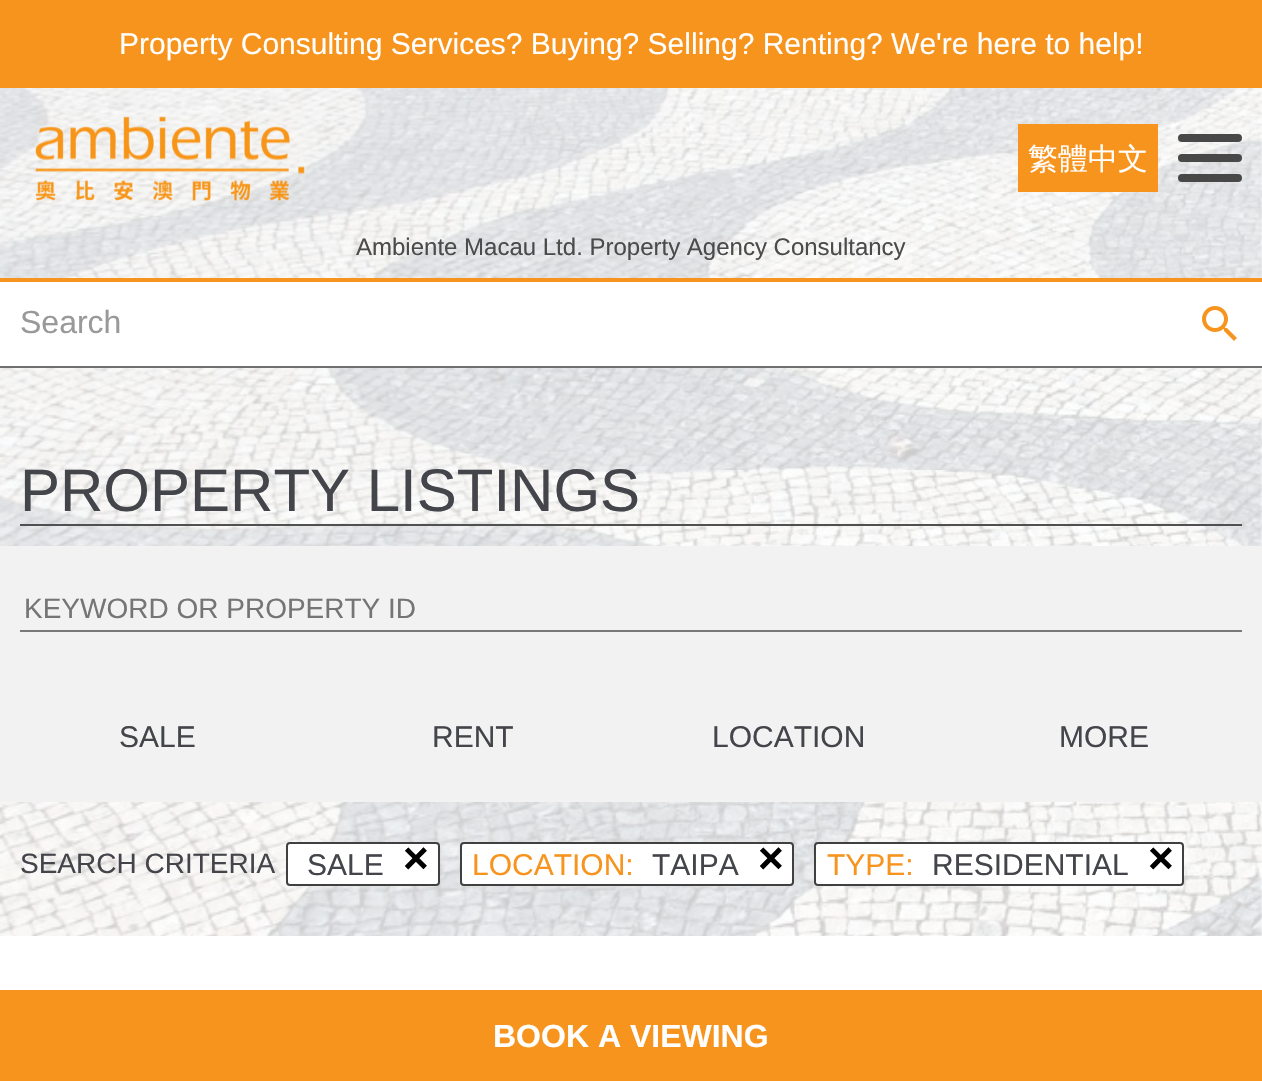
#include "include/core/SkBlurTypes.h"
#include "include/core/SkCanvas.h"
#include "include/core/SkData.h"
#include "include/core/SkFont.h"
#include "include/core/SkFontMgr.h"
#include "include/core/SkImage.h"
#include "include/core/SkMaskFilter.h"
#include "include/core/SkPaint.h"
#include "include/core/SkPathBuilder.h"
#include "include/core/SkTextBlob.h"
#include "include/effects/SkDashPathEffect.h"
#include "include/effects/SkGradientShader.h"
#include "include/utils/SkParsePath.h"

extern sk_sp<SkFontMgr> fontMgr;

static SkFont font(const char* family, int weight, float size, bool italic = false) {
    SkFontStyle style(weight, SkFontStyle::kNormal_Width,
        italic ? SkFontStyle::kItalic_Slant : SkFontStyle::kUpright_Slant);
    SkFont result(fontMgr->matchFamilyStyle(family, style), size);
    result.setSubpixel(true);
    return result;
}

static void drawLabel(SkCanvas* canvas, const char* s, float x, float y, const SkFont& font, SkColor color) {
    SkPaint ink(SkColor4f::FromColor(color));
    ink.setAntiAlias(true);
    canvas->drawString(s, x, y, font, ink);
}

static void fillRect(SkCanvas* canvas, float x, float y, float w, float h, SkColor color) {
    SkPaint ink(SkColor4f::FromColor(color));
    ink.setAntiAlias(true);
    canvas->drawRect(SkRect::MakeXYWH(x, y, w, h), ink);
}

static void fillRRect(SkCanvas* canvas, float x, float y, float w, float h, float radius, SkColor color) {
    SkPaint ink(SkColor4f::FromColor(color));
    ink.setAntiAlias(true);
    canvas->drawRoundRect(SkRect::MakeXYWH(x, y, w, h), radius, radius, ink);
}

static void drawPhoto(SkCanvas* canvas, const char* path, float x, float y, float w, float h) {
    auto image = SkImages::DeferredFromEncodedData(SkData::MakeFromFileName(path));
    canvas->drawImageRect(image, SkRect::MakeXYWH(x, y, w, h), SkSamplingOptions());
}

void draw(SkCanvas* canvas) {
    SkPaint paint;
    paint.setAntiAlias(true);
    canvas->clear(0xFFFFFFFF);
    drawPhoto(canvas, "assets/img1.png", 0, 88, 1262, 848);
    fillRect(canvas, 0, 0, 1262, 88, 0xFFF7941E);
    SkFont font1 = font("Liberation Sans", 400, 30);
    drawLabel(canvas, "Property Consulting Services? Buying? Selling? Renting? We're here to help!", 119, 54, font1, 0xFFFFFFFF);
    drawPhoto(canvas, "assets/img2.png", 35, 116, 270, 85);
    fillRect(canvas, 1018, 124, 140, 68, 0xFFF7941E);
    SkFont font2 = font("WenQuanYi Zen Hei", 500, 30);
    drawLabel(canvas, "繁體中文", 1028, 169, font2, 0xFFFFFFFF);
    fillRRect(canvas, 1178, 134, 64, 8, 4, 0xFF484848);
    fillRRect(canvas, 1178, 154, 64, 8, 4, 0xFF484848);
    fillRRect(canvas, 1178, 174, 64, 8, 4, 0xFF484848);
    SkFont font3 = font("Liberation Sans", 400, 24);
    drawLabel(canvas, "Ambiente Macau Ltd. Property Agency Consultancy", 356, 255, font3, 0xFF4B4B4B);
    fillRect(canvas, 0, 282, 1262, 84, 0xFFFFFFFF);
    fillRect(canvas, 0, 278, 1262, 4, 0xFFF7941E);
    fillRect(canvas, 0, 366, 1262, 2, 0xFF707070);
    SkFont font4 = font("Liberation Sans", 400, 32);
    drawLabel(canvas, "Search", 20, 333, font4, 0xFF999999);
    drawPhoto(canvas, "assets/img3.png", 1202, 306, 35, 35);
    fillRect(canvas, 20, 524, 1222, 2, 0xFF505050);
    SkFont font5 = font("Liberation Sans", 400, 60);
    drawLabel(canvas, "PROPERTY LISTINGS", 20, 511, font5, 0xFF43454A);
    fillRect(canvas, 0, 546, 1262, 256, 0xFFF2F2F2);
    fillRect(canvas, 20, 630, 1222, 2, 0xFF797979);
    SkFont font6 = font("Liberation Sans", 400, 28);
    drawLabel(canvas, "KEYWORD OR PROPERTY ID", 24, 618, font6, 0xFF757575);
    drawLabel(canvas, "SALE", 119, 747, font1, 0xFF43454A);
    drawLabel(canvas, "RENT", 432, 747, font1, 0xFF43454A);
    drawLabel(canvas, "LOCATION", 712, 747, font1, 0xFF43454A);
    drawLabel(canvas, "MORE", 1059, 747, font1, 0xFF43454A);
    drawLabel(canvas, "SEARCH CRITERIA", 20, 873, font6, 0xFF43454A);
    fillRRect(canvas, 286, 842, 154, 44, 4, 0xFFFFFFFF);
    paint.setStroke(true);
    paint.setStrokeWidth(2);
    paint.setColor(0xBF000000);
    canvas->drawRoundRect(SkRect::MakeXYWH(287, 843, 152, 42), 3, 3, paint);
    drawLabel(canvas, "SALE", 307, 875, font1, 0xFF43454A);
    SkFont font7 = font("Liberation Sans", 700, 44);
    drawLabel(canvas, "×", 403, 873, font7, 0xFF000000);
    fillRRect(canvas, 460, 842, 334, 44, 4, 0xFFFFFFFF);
    canvas->drawRoundRect(SkRect::MakeXYWH(461, 843, 332, 42), 3, 3, paint);
    drawLabel(canvas, "LOCATION:", 472, 875, font1, 0xFFF7941E);
    drawLabel(canvas, "TAIPA", 652, 875, font1, 0xFF43454A);
    drawLabel(canvas, "×", 758, 873, font7, 0xFF000000);
    fillRRect(canvas, 814, 842, 370, 44, 4, 0xFFFFFFFF);
    canvas->drawRoundRect(SkRect::MakeXYWH(815, 843, 368, 42), 3, 3, paint);
    drawLabel(canvas, "TYPE:", 827, 875, font1, 0xFFF7941E);
    drawLabel(canvas, "RESIDENTIAL", 932, 875, font1, 0xFF43454A);
    drawLabel(canvas, "×", 1148, 873, font7, 0xFF000000);
    fillRect(canvas, 0, 990, 1262, 91, 0xFFF7941E);
    SkFont font8 = font("Liberation Sans", 700, 32);
    drawLabel(canvas, "BOOK A VIEWING", 493, 1047, font8, 0xFFFFFFFF);
}
